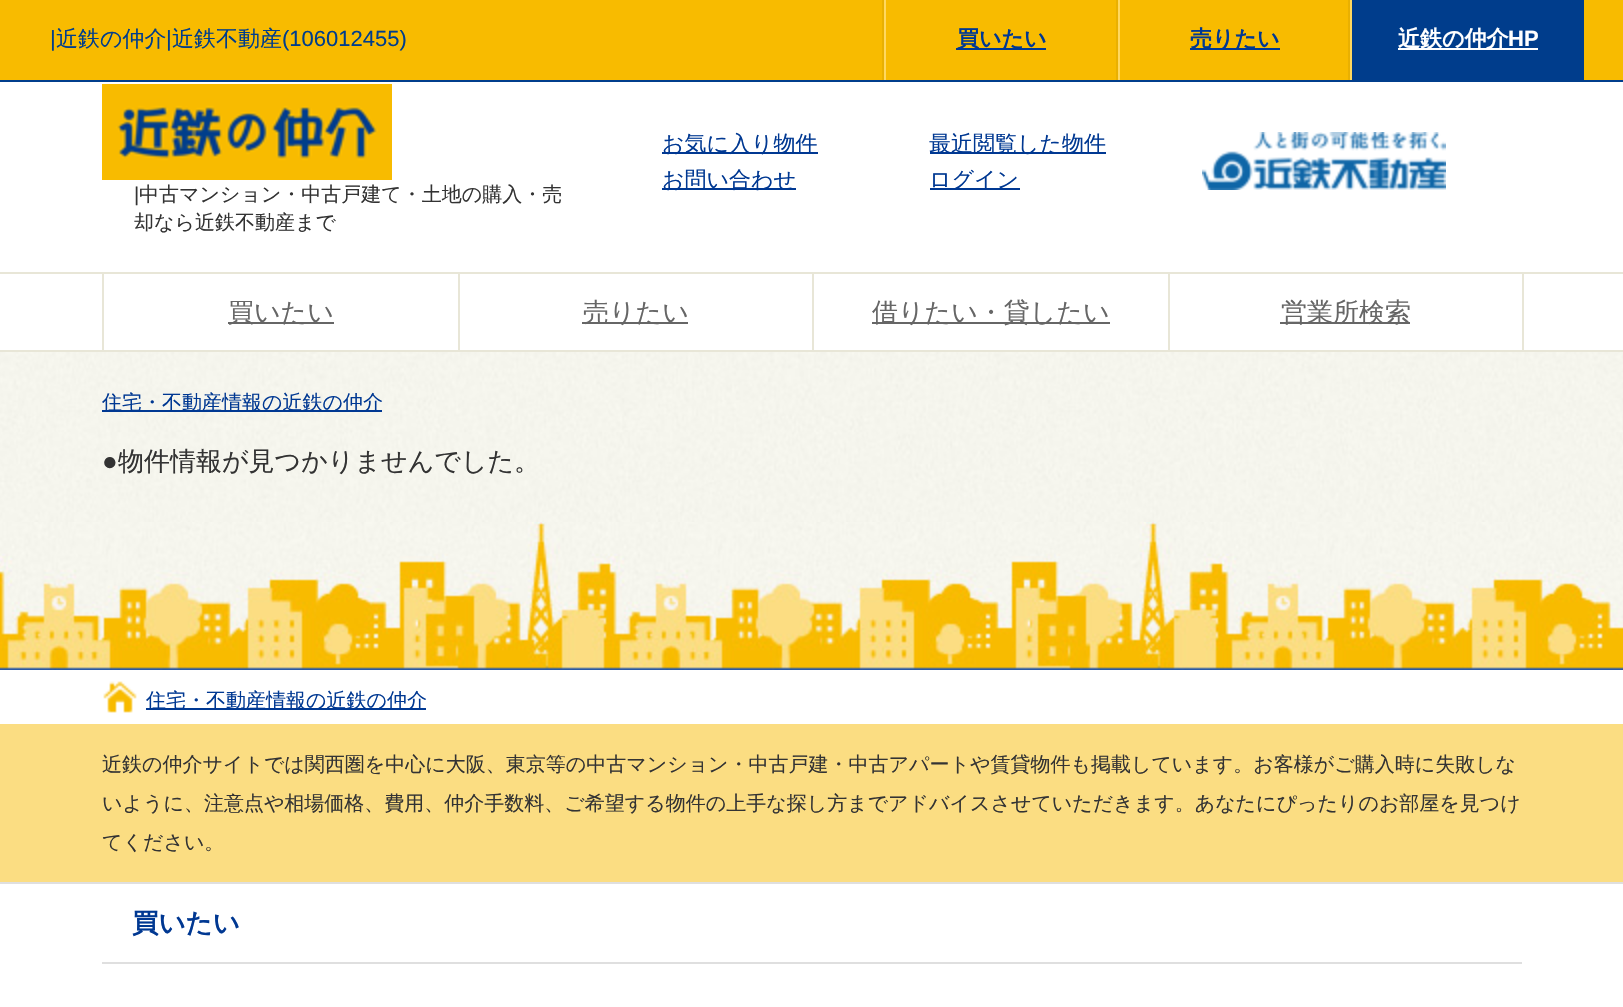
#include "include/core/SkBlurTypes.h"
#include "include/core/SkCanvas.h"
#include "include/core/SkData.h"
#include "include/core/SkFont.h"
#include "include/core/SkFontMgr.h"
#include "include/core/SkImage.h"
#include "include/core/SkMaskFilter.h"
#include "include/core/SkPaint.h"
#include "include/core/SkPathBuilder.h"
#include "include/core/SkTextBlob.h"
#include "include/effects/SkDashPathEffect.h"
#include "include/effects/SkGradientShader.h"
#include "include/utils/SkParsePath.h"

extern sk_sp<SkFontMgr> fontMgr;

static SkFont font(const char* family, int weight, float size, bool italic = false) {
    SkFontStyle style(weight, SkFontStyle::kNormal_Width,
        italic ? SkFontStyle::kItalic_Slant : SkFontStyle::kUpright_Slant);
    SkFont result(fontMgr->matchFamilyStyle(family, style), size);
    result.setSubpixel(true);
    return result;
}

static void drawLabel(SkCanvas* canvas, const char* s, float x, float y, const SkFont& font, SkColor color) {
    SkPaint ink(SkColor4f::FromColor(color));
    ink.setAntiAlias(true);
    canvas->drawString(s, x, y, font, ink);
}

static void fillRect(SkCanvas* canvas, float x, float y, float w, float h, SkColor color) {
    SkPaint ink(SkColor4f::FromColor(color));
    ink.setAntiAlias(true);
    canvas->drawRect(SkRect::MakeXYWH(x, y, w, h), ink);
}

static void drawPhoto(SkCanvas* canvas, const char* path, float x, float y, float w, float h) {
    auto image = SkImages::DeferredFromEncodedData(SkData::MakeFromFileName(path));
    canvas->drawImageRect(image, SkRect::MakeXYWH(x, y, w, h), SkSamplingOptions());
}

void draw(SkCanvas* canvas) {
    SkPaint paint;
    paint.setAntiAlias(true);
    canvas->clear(0xFFFFFFFF);
    drawPhoto(canvas, "assets/img1.png", 0, 352, 1623, 170);
    fillRect(canvas, 0, 0, 1623, 80, 0xFFF8BB00);
    fillRect(canvas, 0, 80, 1623, 2, 0xFF003D8C);
    SkFont font1 = font("Liberation Sans", 400, 22);
    drawLabel(canvas, "|", 50, 46, font1, 0xFF003D8C);
    SkFont font2 = font("WenQuanYi Zen Hei", 500, 22);
    drawLabel(canvas, "近鉄の仲介", 56, 46, font2, 0xFF003D8C);
    drawLabel(canvas, "|", 166, 46, font1, 0xFF003D8C);
    drawLabel(canvas, "近鉄不動産", 172, 46, font2, 0xFF003D8C);
    drawLabel(canvas, "(106012455)", 282, 46, font1, 0xFF003D8C);
    fillRect(canvas, 882, 0, 2, 80, 0xFFE9B001);
    fillRect(canvas, 884, 0, 2, 80, 0xFFFFD85F);
    fillRect(canvas, 956, 48, 90, 2, 0xFF003892);
    SkFont font3 = font("WenQuanYi Zen Hei", 700, 22);
    drawLabel(canvas, "買いたい", 957, 46, font3, 0xFF003892);
    fillRect(canvas, 1116, 0, 2, 80, 0xFFE9B001);
    fillRect(canvas, 1118, 0, 2, 80, 0xFFFFD85F);
    fillRect(canvas, 1190, 48, 90, 2, 0xFF003892);
    drawLabel(canvas, "売りたい", 1190, 46, font3, 0xFF003892);
    fillRect(canvas, 1348, 0, 2, 80, 0xFFE9B001);
    fillRect(canvas, 1352, 0, 232, 80, 0xFF003D8C);
    fillRect(canvas, 1350, 0, 2, 80, 0xFFFFD85F);
    fillRect(canvas, 1398, 48, 140, 2, 0xFFFFFFFF);
    drawLabel(canvas, "近鉄の仲介", 1398, 46, font3, 0xFFFFFFFF);
    SkFont font4 = font("Liberation Sans", 700, 22);
    drawLabel(canvas, "HP", 1508, 46, font4, 0xFFFFFFFF);
    fillRect(canvas, 662, 152, 156, 2, 0xFF003892);
    drawLabel(canvas, "お気に入り物件", 662, 151, font2, 0xFF003892);
    fillRect(canvas, 662, 188, 134, 2, 0xFF003892);
    drawLabel(canvas, "お問い合わせ", 662, 187, font2, 0xFF003892);
    fillRect(canvas, 930, 152, 176, 2, 0xFF003892);
    drawLabel(canvas, "最近閲覧した物件", 929, 151, font2, 0xFF003892);
    fillRect(canvas, 930, 188, 90, 2, 0xFF003892);
    drawLabel(canvas, "ログイン", 929, 187, font2, 0xFF003892);
    drawPhoto(canvas, "assets/img2.png", 1202, 132, 244, 58);
    drawPhoto(canvas, "assets/img3.png", 102, 84, 290, 96);
    SkFont font5 = font("Liberation Sans", 400, 20);
    drawLabel(canvas, "|", 134, 201, font5, 0xFF333333);
    SkFont font6 = font("WenQuanYi Zen Hei", 500, 20);
    drawLabel(canvas, "中古マンション・中古戸建て・土地の購入・売", 139, 201, font6, 0xFF333333);
    drawLabel(canvas, "却なら近鉄不動産まで", 134, 229, font6, 0xFF333333);
    fillRect(canvas, 0, 272, 1623, 2, 0xFFE8E6D7);
    fillRect(canvas, 0, 350, 1623, 2, 0xFFE8E6D7);
    fillRect(canvas, 102, 274, 2, 76, 0xFFE8E6D7);
    fillRect(canvas, 458, 274, 2, 76, 0xFFE8E6D7);
    fillRect(canvas, 228, 322, 106, 2, 0xFF666666);
    SkFont font7 = font("WenQuanYi Zen Hei", 500, 26);
    drawLabel(canvas, "買いたい", 228, 321, font7, 0xFF666666);
    fillRect(canvas, 812, 274, 2, 76, 0xFFE8E6D7);
    fillRect(canvas, 582, 322, 106, 2, 0xFF666666);
    drawLabel(canvas, "売りたい", 583, 321, font7, 0xFF666666);
    fillRect(canvas, 1168, 274, 2, 76, 0xFFE8E6D7);
    fillRect(canvas, 872, 322, 238, 2, 0xFF666666);
    drawLabel(canvas, "借りたい・貸したい", 872, 321, font7, 0xFF666666);
    fillRect(canvas, 1522, 274, 2, 76, 0xFFE8E6D7);
    fillRect(canvas, 1280, 322, 130, 2, 0xFF666666);
    drawLabel(canvas, "営業所検索", 1281, 321, font7, 0xFF666666);
    fillRect(canvas, 102, 410, 280, 2, 0xFF003892);
    drawLabel(canvas, "住宅・不動産情報の近鉄の仲介", 102, 409, font6, 0xFF003892);
    SkFont font8 = font("Liberation Sans", 400, 26);
    drawLabel(canvas, "●", 102, 470, font8, 0xFF333333);
    drawLabel(canvas, "物件情報が見つかりませんでした。", 118, 470, font7, 0xFF333333);
    drawPhoto(canvas, "assets/img4.png", 0, 522, 1623, 148);
    drawPhoto(canvas, "assets/img5.png", 103, 681, 34, 32);
    fillRect(canvas, 146, 708, 280, 2, 0xFF003892);
    drawLabel(canvas, "住宅・不動産情報の近鉄の仲介", 146, 707, font6, 0xFF003892);
    fillRect(canvas, 0, 724, 1623, 158, 0xFFFBDD82);
    drawLabel(canvas, "近鉄の仲介サイトでは関西圏を中心に大阪、東京等の中古マンション・中古戸建・中古アパートや賃貸物件も掲載しています。お客様がご購入時に失敗しな", 102, 771, font6, 0xFF333333);
    drawLabel(canvas, "いように、注意点や相場価格、費用、仲介手数料、ご希望する物件の上手な探し方までアドバイスさせていただきます。あなたにぴったりのお部屋を見つけ", 102, 810, font6, 0xFF333333);
    drawLabel(canvas, "てください。", 102, 849, font6, 0xFF333333);
    fillRect(canvas, 0, 882, 1623, 2, 0xFFDFDFDF);
    fillRect(canvas, 102, 962, 1420, 2, 0xFFDFDFDF);
    SkFont font9 = font("WenQuanYi Zen Hei", 700, 26.5f);
    drawLabel(canvas, "買いたい", 132, 932, font9, 0xFF003892);
}
